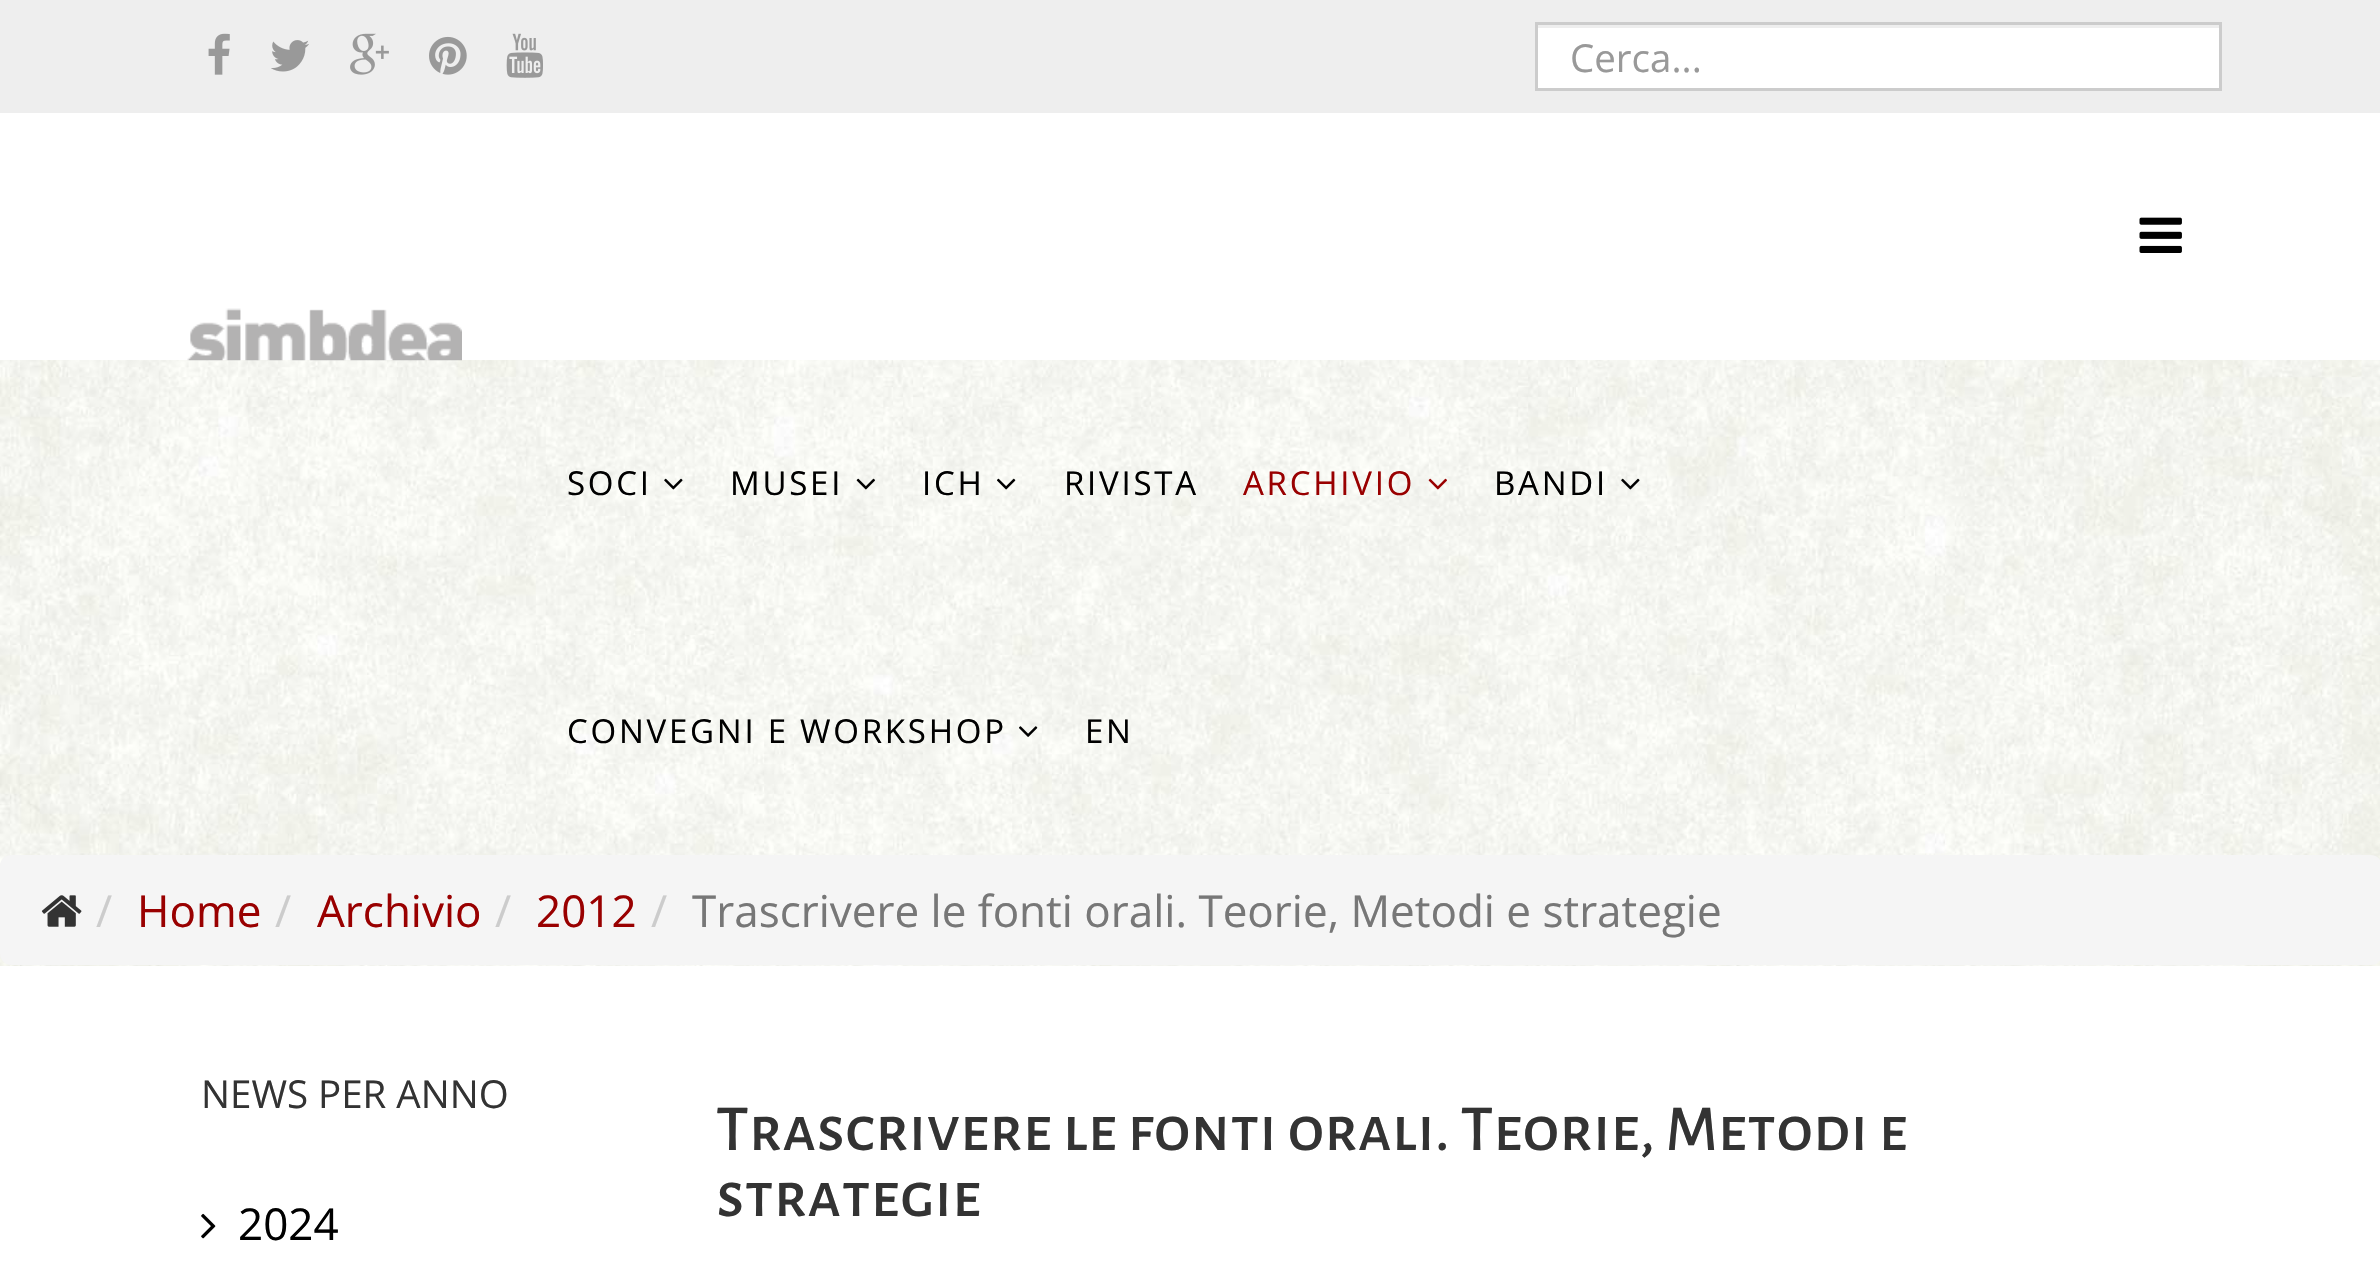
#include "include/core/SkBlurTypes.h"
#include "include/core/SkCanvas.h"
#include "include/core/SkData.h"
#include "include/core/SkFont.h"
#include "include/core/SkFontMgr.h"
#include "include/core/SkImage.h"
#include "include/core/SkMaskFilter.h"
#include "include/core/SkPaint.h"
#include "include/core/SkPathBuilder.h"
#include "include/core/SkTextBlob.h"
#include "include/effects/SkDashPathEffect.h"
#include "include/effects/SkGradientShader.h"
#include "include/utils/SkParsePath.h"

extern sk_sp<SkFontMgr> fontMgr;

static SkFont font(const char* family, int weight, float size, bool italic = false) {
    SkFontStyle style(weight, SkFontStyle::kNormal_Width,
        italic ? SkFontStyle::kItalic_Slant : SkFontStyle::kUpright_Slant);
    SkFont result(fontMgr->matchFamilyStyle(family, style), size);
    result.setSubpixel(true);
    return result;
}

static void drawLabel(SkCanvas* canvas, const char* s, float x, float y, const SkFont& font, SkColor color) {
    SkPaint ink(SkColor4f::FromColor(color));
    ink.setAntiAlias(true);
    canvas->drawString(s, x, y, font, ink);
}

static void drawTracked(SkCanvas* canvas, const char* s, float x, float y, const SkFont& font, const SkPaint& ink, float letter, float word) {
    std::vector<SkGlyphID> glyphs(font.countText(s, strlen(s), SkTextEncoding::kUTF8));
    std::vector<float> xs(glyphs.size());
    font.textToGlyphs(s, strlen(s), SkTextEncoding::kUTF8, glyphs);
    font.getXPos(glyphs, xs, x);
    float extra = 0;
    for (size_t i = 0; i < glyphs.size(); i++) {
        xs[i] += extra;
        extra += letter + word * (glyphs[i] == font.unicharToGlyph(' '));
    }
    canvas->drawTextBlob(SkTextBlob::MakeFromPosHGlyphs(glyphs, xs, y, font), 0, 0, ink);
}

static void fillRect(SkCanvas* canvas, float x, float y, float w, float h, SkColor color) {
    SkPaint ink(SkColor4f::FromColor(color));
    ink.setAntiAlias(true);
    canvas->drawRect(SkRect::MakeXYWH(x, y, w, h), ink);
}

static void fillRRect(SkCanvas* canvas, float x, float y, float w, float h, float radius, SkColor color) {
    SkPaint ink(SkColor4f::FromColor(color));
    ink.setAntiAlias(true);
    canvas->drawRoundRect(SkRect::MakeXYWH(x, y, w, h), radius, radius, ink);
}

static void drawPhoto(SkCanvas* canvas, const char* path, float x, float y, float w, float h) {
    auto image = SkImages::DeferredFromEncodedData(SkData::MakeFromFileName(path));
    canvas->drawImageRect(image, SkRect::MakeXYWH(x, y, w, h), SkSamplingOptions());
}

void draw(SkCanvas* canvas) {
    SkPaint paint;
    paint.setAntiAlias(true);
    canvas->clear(0xFFFFFFFF);
    fillRect(canvas, 0, 0, 2380, 113, 0xFFEEEEEE);
    drawPhoto(canvas, "assets/img1.png", 208, 33, 22, 42);
    drawPhoto(canvas, "assets/img2.png", 271, 40, 38, 32);
    drawPhoto(canvas, "assets/img3.png", 350, 33, 39, 42);
    drawPhoto(canvas, "assets/img4.png", 429, 36, 38, 39);
    drawPhoto(canvas, "assets/img5.png", 506, 33, 37, 45);
    fillRect(canvas, 1538, 28, 681, 60, 0xFFFFFFFF);
    paint.setStroke(true);
    paint.setStrokeWidth(3);
    paint.setColor(0xFFCCCCCC);
    canvas->drawRect(SkRect::MakeXYWH(1536.5f, 23.5f, 684, 66), paint);
    SkFont font1 = font("Open Sans", 400, 38.5f);
    drawLabel(canvas, "Cerca...", 1570, 72, font1, 0xFF999999);
    drawPhoto(canvas, "assets/img14.png", 0, 360, 2380, 606);
    drawPhoto(canvas, "assets/img6.png", 187, 308, 275, 53);
    drawPhoto(canvas, "assets/img7.png", 2139, 217, 43, 36);
    SkFont font2 = font("Open Sans", 400, 33);
    paint.setStroke(false);
    paint.setColor(0xFF000000);
    drawTracked(canvas, "SOCI", 567, 495, font2, paint, 2.75f, 0);
    drawPhoto(canvas, "assets/img8.png", 664, 478, 19, 12);
    drawTracked(canvas, "MUSEI", 730, 495, font2, paint, 2.75f, 0);
    drawPhoto(canvas, "assets/img9.png", 856, 478, 19, 12);
    drawTracked(canvas, "ICH", 922, 495, font2, paint, 2.75f, 0);
    drawPhoto(canvas, "assets/img10.png", 997, 478, 19, 12);
    drawTracked(canvas, "RIVISTA", 1064, 495, font2, paint, 2.75f, 0);
    paint.setColor(0xFF990000);
    drawTracked(canvas, "ARCHIVIO", 1243, 495, font2, paint, 2.75f, 0);
    drawPhoto(canvas, "assets/img11.png", 1428, 478, 19, 12);
    paint.setColor(0xFF000000);
    drawTracked(canvas, "BANDI", 1494, 495, font2, paint, 2.75f, 0);
    drawPhoto(canvas, "assets/img12.png", 1621, 478, 19, 12);
    drawTracked(canvas, "CONVEGNI E WORKSHOP", 567, 743, font2, paint, 2.75f, 0);
    drawPhoto(canvas, "assets/img13.png", 1019, 726, 19, 11);
    drawTracked(canvas, "EN", 1085, 743, font2, paint, 2.75f, 0);
    fillRRect(canvas, 0, 855, 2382, 110, 11, 0xFFF5F5F5);
    drawPhoto(canvas, "assets/img15.png", 41, 895, 41, 32);
    SkFont font3 = font("Open Sans", 400, 44);
    drawLabel(canvas, "/", 96, 927, font3, 0xFFCCCCCC);
    drawLabel(canvas, "Home", 137, 927, font3, 0xFF990000);
    drawLabel(canvas, "/", 275, 927, font3, 0xFFCCCCCC);
    drawLabel(canvas, "Archivio", 317, 927, font3, 0xFF990000);
    drawLabel(canvas, "/", 495, 927, font3, 0xFFCCCCCC);
    drawLabel(canvas, "2012", 536, 927, font3, 0xFF990000);
    drawLabel(canvas, "/", 651, 927, font3, 0xFFCCCCCC);
    drawLabel(canvas, "Trascrivere le fonti orali. Teorie, Metodi e strategie", 692, 927, font3, 0xFF777777);
    drawLabel(canvas, "NEWS PER ANNO", 201, 1108, font1, 0xFF333333);
    drawPhoto(canvas, "assets/img16.png", 201, 1213, 15, 26);
    drawLabel(canvas, "2024", 238, 1240, font3, 0xFF000000);
    SkFont font4 = font("Alegreya Sans SC", 500, 66);
    drawLabel(canvas, "Trascrivere le fonti orali. Teorie, Metodi e", 716, 1150, font4, 0xFF333333);
    drawLabel(canvas, "strategie", 716, 1216, font4, 0xFF333333);
}
